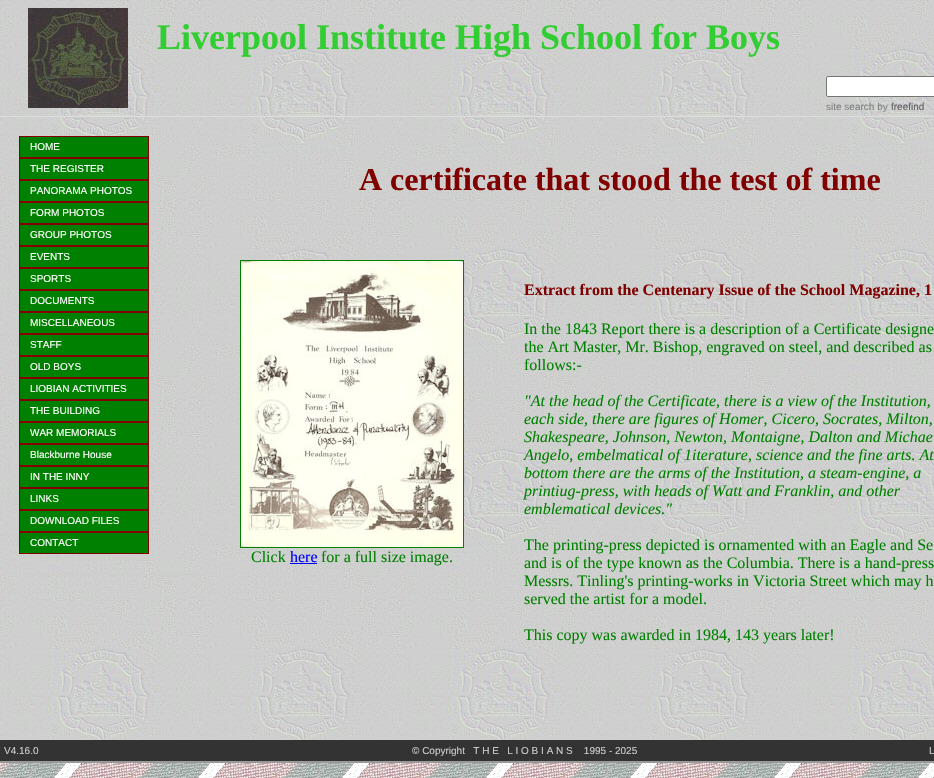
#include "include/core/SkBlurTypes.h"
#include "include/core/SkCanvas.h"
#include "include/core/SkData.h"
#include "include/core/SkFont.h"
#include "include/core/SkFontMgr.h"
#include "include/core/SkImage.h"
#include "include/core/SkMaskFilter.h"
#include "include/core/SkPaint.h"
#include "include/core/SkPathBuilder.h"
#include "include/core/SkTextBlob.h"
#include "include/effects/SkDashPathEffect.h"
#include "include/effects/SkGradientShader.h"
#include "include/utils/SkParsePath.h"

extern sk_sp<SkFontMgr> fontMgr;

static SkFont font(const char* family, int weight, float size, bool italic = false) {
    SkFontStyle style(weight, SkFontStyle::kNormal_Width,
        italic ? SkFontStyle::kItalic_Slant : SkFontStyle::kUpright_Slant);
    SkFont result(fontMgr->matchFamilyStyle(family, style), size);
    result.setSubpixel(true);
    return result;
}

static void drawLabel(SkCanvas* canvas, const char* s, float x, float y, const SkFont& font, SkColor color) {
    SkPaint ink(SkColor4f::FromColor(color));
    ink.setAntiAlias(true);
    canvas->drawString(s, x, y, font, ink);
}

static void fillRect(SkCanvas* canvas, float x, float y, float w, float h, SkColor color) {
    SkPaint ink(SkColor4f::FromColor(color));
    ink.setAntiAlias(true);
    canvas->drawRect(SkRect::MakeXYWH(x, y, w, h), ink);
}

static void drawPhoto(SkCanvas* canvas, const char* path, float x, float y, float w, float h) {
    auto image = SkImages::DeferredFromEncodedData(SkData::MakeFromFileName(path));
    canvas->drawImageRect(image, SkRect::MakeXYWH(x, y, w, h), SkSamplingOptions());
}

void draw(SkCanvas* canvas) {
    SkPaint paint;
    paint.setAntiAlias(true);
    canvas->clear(0xFFFFFFFF);
    drawPhoto(canvas, "assets/img1.png", 0, 763, 934, 15);
    drawPhoto(canvas, "assets/img2.png", 0, 0, 934, 740);
    fillRect(canvas, 0, 116, 934, 1, 0xFFDDDDDD);
    drawPhoto(canvas, "assets/img3.png", 28, 8, 100, 100);
    SkFont font1 = font("Liberation Serif", 700, 36);
    drawLabel(canvas, "Liverpool Institute High School for Boys", 157, 49, font1, 0xFF32CD32);
    paint.setColor(0xFFFFFFFF);
    canvas->drawRoundRect(SkRect::MakeXYWH(826.5f, 76.5f, 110, 20), 1.5f, 1.5f, paint);
    paint.setStroke(true);
    paint.setStrokeWidth(1);
    paint.setColor(0xFF767676);
    canvas->drawRoundRect(SkRect::MakeXYWH(826.5f, 76.5f, 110, 20), 1.5f, 1.5f, paint);
    SkFont font2 = font("Liberation Sans", 400, 10);
    drawLabel(canvas, "site search by", 826, 110, font2, 0xFF808080);
    drawLabel(canvas, "freefind", 891, 110, font2, 0xFF606060);
    paint.setStroke(false);
    paint.setColor(0xFF008000);
    canvas->drawRect(SkRect::MakeXYWH(19.5f, 136.5f, 129, 21), paint);
    paint.setStroke(true);
    paint.setColor(0xFF800000);
    canvas->drawRect(SkRect::MakeXYWH(19.5f, 136.5f, 129, 21), paint);
    drawLabel(canvas, "HOME", 30, 150, font2, 0xFFFFFFFF);
    paint.setStroke(false);
    paint.setColor(0xFF008000);
    canvas->drawRect(SkRect::MakeXYWH(19.5f, 158.5f, 129, 21), paint);
    paint.setStroke(true);
    paint.setColor(0xFF800000);
    canvas->drawRect(SkRect::MakeXYWH(19.5f, 158.5f, 129, 21), paint);
    drawLabel(canvas, "THE REGISTER", 30, 172, font2, 0xFFFFFFFF);
    paint.setStroke(false);
    paint.setColor(0xFF008000);
    canvas->drawRect(SkRect::MakeXYWH(19.5f, 180.5f, 129, 21), paint);
    paint.setStroke(true);
    paint.setColor(0xFF800000);
    canvas->drawRect(SkRect::MakeXYWH(19.5f, 180.5f, 129, 21), paint);
    drawLabel(canvas, "PANORAMA PHOTOS", 30, 194, font2, 0xFFFFFFFF);
    paint.setStroke(false);
    paint.setColor(0xFF008000);
    canvas->drawRect(SkRect::MakeXYWH(19.5f, 202.5f, 129, 21), paint);
    paint.setStroke(true);
    paint.setColor(0xFF800000);
    canvas->drawRect(SkRect::MakeXYWH(19.5f, 202.5f, 129, 21), paint);
    drawLabel(canvas, "FORM PHOTOS", 30, 216, font2, 0xFFFFFFFF);
    paint.setStroke(false);
    paint.setColor(0xFF008000);
    canvas->drawRect(SkRect::MakeXYWH(19.5f, 224.5f, 129, 21), paint);
    paint.setStroke(true);
    paint.setColor(0xFF800000);
    canvas->drawRect(SkRect::MakeXYWH(19.5f, 224.5f, 129, 21), paint);
    drawLabel(canvas, "GROUP PHOTOS", 30, 238, font2, 0xFFFFFFFF);
    paint.setStroke(false);
    paint.setColor(0xFF008000);
    canvas->drawRect(SkRect::MakeXYWH(19.5f, 246.5f, 129, 21), paint);
    paint.setStroke(true);
    paint.setColor(0xFF800000);
    canvas->drawRect(SkRect::MakeXYWH(19.5f, 246.5f, 129, 21), paint);
    drawLabel(canvas, "EVENTS", 30, 260, font2, 0xFFFFFFFF);
    paint.setStroke(false);
    paint.setColor(0xFF008000);
    canvas->drawRect(SkRect::MakeXYWH(19.5f, 268.5f, 129, 21), paint);
    paint.setStroke(true);
    paint.setColor(0xFF800000);
    canvas->drawRect(SkRect::MakeXYWH(19.5f, 268.5f, 129, 21), paint);
    drawLabel(canvas, "SPORTS", 30, 282, font2, 0xFFFFFFFF);
    paint.setStroke(false);
    paint.setColor(0xFF008000);
    canvas->drawRect(SkRect::MakeXYWH(19.5f, 290.5f, 129, 21), paint);
    paint.setStroke(true);
    paint.setColor(0xFF800000);
    canvas->drawRect(SkRect::MakeXYWH(19.5f, 290.5f, 129, 21), paint);
    drawLabel(canvas, "DOCUMENTS", 30, 304, font2, 0xFFFFFFFF);
    paint.setStroke(false);
    paint.setColor(0xFF008000);
    canvas->drawRect(SkRect::MakeXYWH(19.5f, 312.5f, 129, 21), paint);
    paint.setStroke(true);
    paint.setColor(0xFF800000);
    canvas->drawRect(SkRect::MakeXYWH(19.5f, 312.5f, 129, 21), paint);
    drawLabel(canvas, "MISCELLANEOUS", 30, 326, font2, 0xFFFFFFFF);
    paint.setStroke(false);
    paint.setColor(0xFF008000);
    canvas->drawRect(SkRect::MakeXYWH(19.5f, 334.5f, 129, 21), paint);
    paint.setStroke(true);
    paint.setColor(0xFF800000);
    canvas->drawRect(SkRect::MakeXYWH(19.5f, 334.5f, 129, 21), paint);
    drawLabel(canvas, "STAFF", 30, 348, font2, 0xFFFFFFFF);
    paint.setStroke(false);
    paint.setColor(0xFF008000);
    canvas->drawRect(SkRect::MakeXYWH(19.5f, 356.5f, 129, 21), paint);
    paint.setStroke(true);
    paint.setColor(0xFF800000);
    canvas->drawRect(SkRect::MakeXYWH(19.5f, 356.5f, 129, 21), paint);
    drawLabel(canvas, "OLD BOYS", 30, 370, font2, 0xFFFFFFFF);
    paint.setStroke(false);
    paint.setColor(0xFF008000);
    canvas->drawRect(SkRect::MakeXYWH(19.5f, 378.5f, 129, 21), paint);
    paint.setStroke(true);
    paint.setColor(0xFF800000);
    canvas->drawRect(SkRect::MakeXYWH(19.5f, 378.5f, 129, 21), paint);
    drawLabel(canvas, "LIOBIAN ACTIVITIES", 30, 392, font2, 0xFFFFFFFF);
    paint.setStroke(false);
    paint.setColor(0xFF008000);
    canvas->drawRect(SkRect::MakeXYWH(19.5f, 400.5f, 129, 21), paint);
    paint.setStroke(true);
    paint.setColor(0xFF800000);
    canvas->drawRect(SkRect::MakeXYWH(19.5f, 400.5f, 129, 21), paint);
    drawLabel(canvas, "THE BUILDING", 30, 414, font2, 0xFFFFFFFF);
    paint.setStroke(false);
    paint.setColor(0xFF008000);
    canvas->drawRect(SkRect::MakeXYWH(19.5f, 422.5f, 129, 21), paint);
    paint.setStroke(true);
    paint.setColor(0xFF800000);
    canvas->drawRect(SkRect::MakeXYWH(19.5f, 422.5f, 129, 21), paint);
    drawLabel(canvas, "WAR MEMORIALS", 30, 436, font2, 0xFFFFFFFF);
    paint.setStroke(false);
    paint.setColor(0xFF008000);
    canvas->drawRect(SkRect::MakeXYWH(19.5f, 444.5f, 129, 21), paint);
    paint.setStroke(true);
    paint.setColor(0xFF800000);
    canvas->drawRect(SkRect::MakeXYWH(19.5f, 444.5f, 129, 21), paint);
    drawLabel(canvas, "Blackburne House", 30, 458, font2, 0xFFFFFFFF);
    paint.setStroke(false);
    paint.setColor(0xFF008000);
    canvas->drawRect(SkRect::MakeXYWH(19.5f, 466.5f, 129, 21), paint);
    paint.setStroke(true);
    paint.setColor(0xFF800000);
    canvas->drawRect(SkRect::MakeXYWH(19.5f, 466.5f, 129, 21), paint);
    drawLabel(canvas, "IN THE INNY", 30, 480, font2, 0xFFFFFFFF);
    paint.setStroke(false);
    paint.setColor(0xFF008000);
    canvas->drawRect(SkRect::MakeXYWH(19.5f, 488.5f, 129, 21), paint);
    paint.setStroke(true);
    paint.setColor(0xFF800000);
    canvas->drawRect(SkRect::MakeXYWH(19.5f, 488.5f, 129, 21), paint);
    drawLabel(canvas, "LINKS", 30, 502, font2, 0xFFFFFFFF);
    paint.setStroke(false);
    paint.setColor(0xFF008000);
    canvas->drawRect(SkRect::MakeXYWH(19.5f, 510.5f, 129, 21), paint);
    paint.setStroke(true);
    paint.setColor(0xFF800000);
    canvas->drawRect(SkRect::MakeXYWH(19.5f, 510.5f, 129, 21), paint);
    drawLabel(canvas, "DOWNLOAD FILES", 30, 524, font2, 0xFFFFFFFF);
    paint.setStroke(false);
    paint.setColor(0xFF008000);
    canvas->drawRect(SkRect::MakeXYWH(19.5f, 532.5f, 129, 21), paint);
    paint.setStroke(true);
    paint.setColor(0xFF800000);
    canvas->drawRect(SkRect::MakeXYWH(19.5f, 532.5f, 129, 21), paint);
    drawLabel(canvas, "CONTACT", 30, 546, font2, 0xFFFFFFFF);
    SkFont font3 = font("Liberation Serif", 700, 32);
    drawLabel(canvas, "A certificate that stood the test of time", 359, 190, font3, 0xFF800000);
    paint.setColor(0xFF008000);
    canvas->drawRect(SkRect::MakeXYWH(240.5f, 260.5f, 223, 287), paint);
    drawPhoto(canvas, "assets/img4.png", 241, 261, 222, 286);
    SkFont font4 = font("Liberation Serif", 400, 16);
    drawLabel(canvas, "Click", 251, 562, font4, 0xFF008000);
    drawLabel(canvas, "here", 290, 562, font4, 0xFF0000FF);
    fillRect(canvas, 290, 563, 27, 1, 0xFF0000FF);
    drawLabel(canvas, "for a full size image.", 321, 562, font4, 0xFF008000);
    SkFont font5 = font("Liberation Serif", 700, 16);
    drawLabel(canvas, "Extract from the Centenary Issue of the School Magazine, 1", 524, 295, font5, 0xFF800000);
    drawLabel(canvas, "In the 1843 Report there is a description of a Certificate designe", 524, 334, font4, 0xFF008000);
    drawLabel(canvas, "the Art Master, Mr. Bishop, engraved on steel, and described as", 524, 352, font4, 0xFF008000);
    drawLabel(canvas, "follows:-", 524, 370, font4, 0xFF008000);
    SkFont font6 = font("Liberation Serif", 400, 16, true);
    drawLabel(canvas, "\"At the head of the Certificate, there is a view of the Institution,", 524, 406, font6, 0xFF008000);
    drawLabel(canvas, "each side, there are figures of Homer, Cicero, Socrates, Milton,", 524, 424, font6, 0xFF008000);
    drawLabel(canvas, "Shakespeare, Johnson, Newton, Montaigne, Dalton and Michae", 524, 442, font6, 0xFF008000);
    drawLabel(canvas, "Angelo, embelmatical of 1iterature, science and the fine arts. At", 524, 460, font6, 0xFF008000);
    drawLabel(canvas, "bottom there are the arms of the Institution, a steam-engine, a", 524, 478, font6, 0xFF008000);
    drawLabel(canvas, "printiug-press, with heads of Watt and Franklin, and other", 524, 496, font6, 0xFF008000);
    drawLabel(canvas, "emblematical devices.\"", 524, 514, font6, 0xFF008000);
    drawLabel(canvas, "The printing-press depicted is ornamented with an Eagle and Se", 524, 550, font4, 0xFF008000);
    drawLabel(canvas, "and is of the type known as the Columbia. There is a hand-press", 524, 568, font4, 0xFF008000);
    drawLabel(canvas, "Messrs. Tinling's printing-works in Victoria Street which may h", 524, 586, font4, 0xFF008000);
    drawLabel(canvas, "served the artist for a model.", 524, 604, font4, 0xFF008000);
    drawLabel(canvas, "This copy was awarded in 1984, 143 years later!", 524, 640, font4, 0xFF008000);
    fillRect(canvas, 18, 574, 180, 1, 0xFFCCCCCC);
    fillRect(canvas, 0, 740, 934, 21, 0xFF333333);
    fillRect(canvas, 0, 761, 934, 2, 0xFF999999);
    drawLabel(canvas, "V4.16.0", 4, 754, font2, 0xFFCCCCCC);
    drawLabel(canvas, "© Copyright   T H E   L I O B I A N S    1995 - 2025", 412, 754, font2, 0xFFCCCCCC);
    drawLabel(canvas, "L", 929, 754, font2, 0xFFCCCCCC);
}
